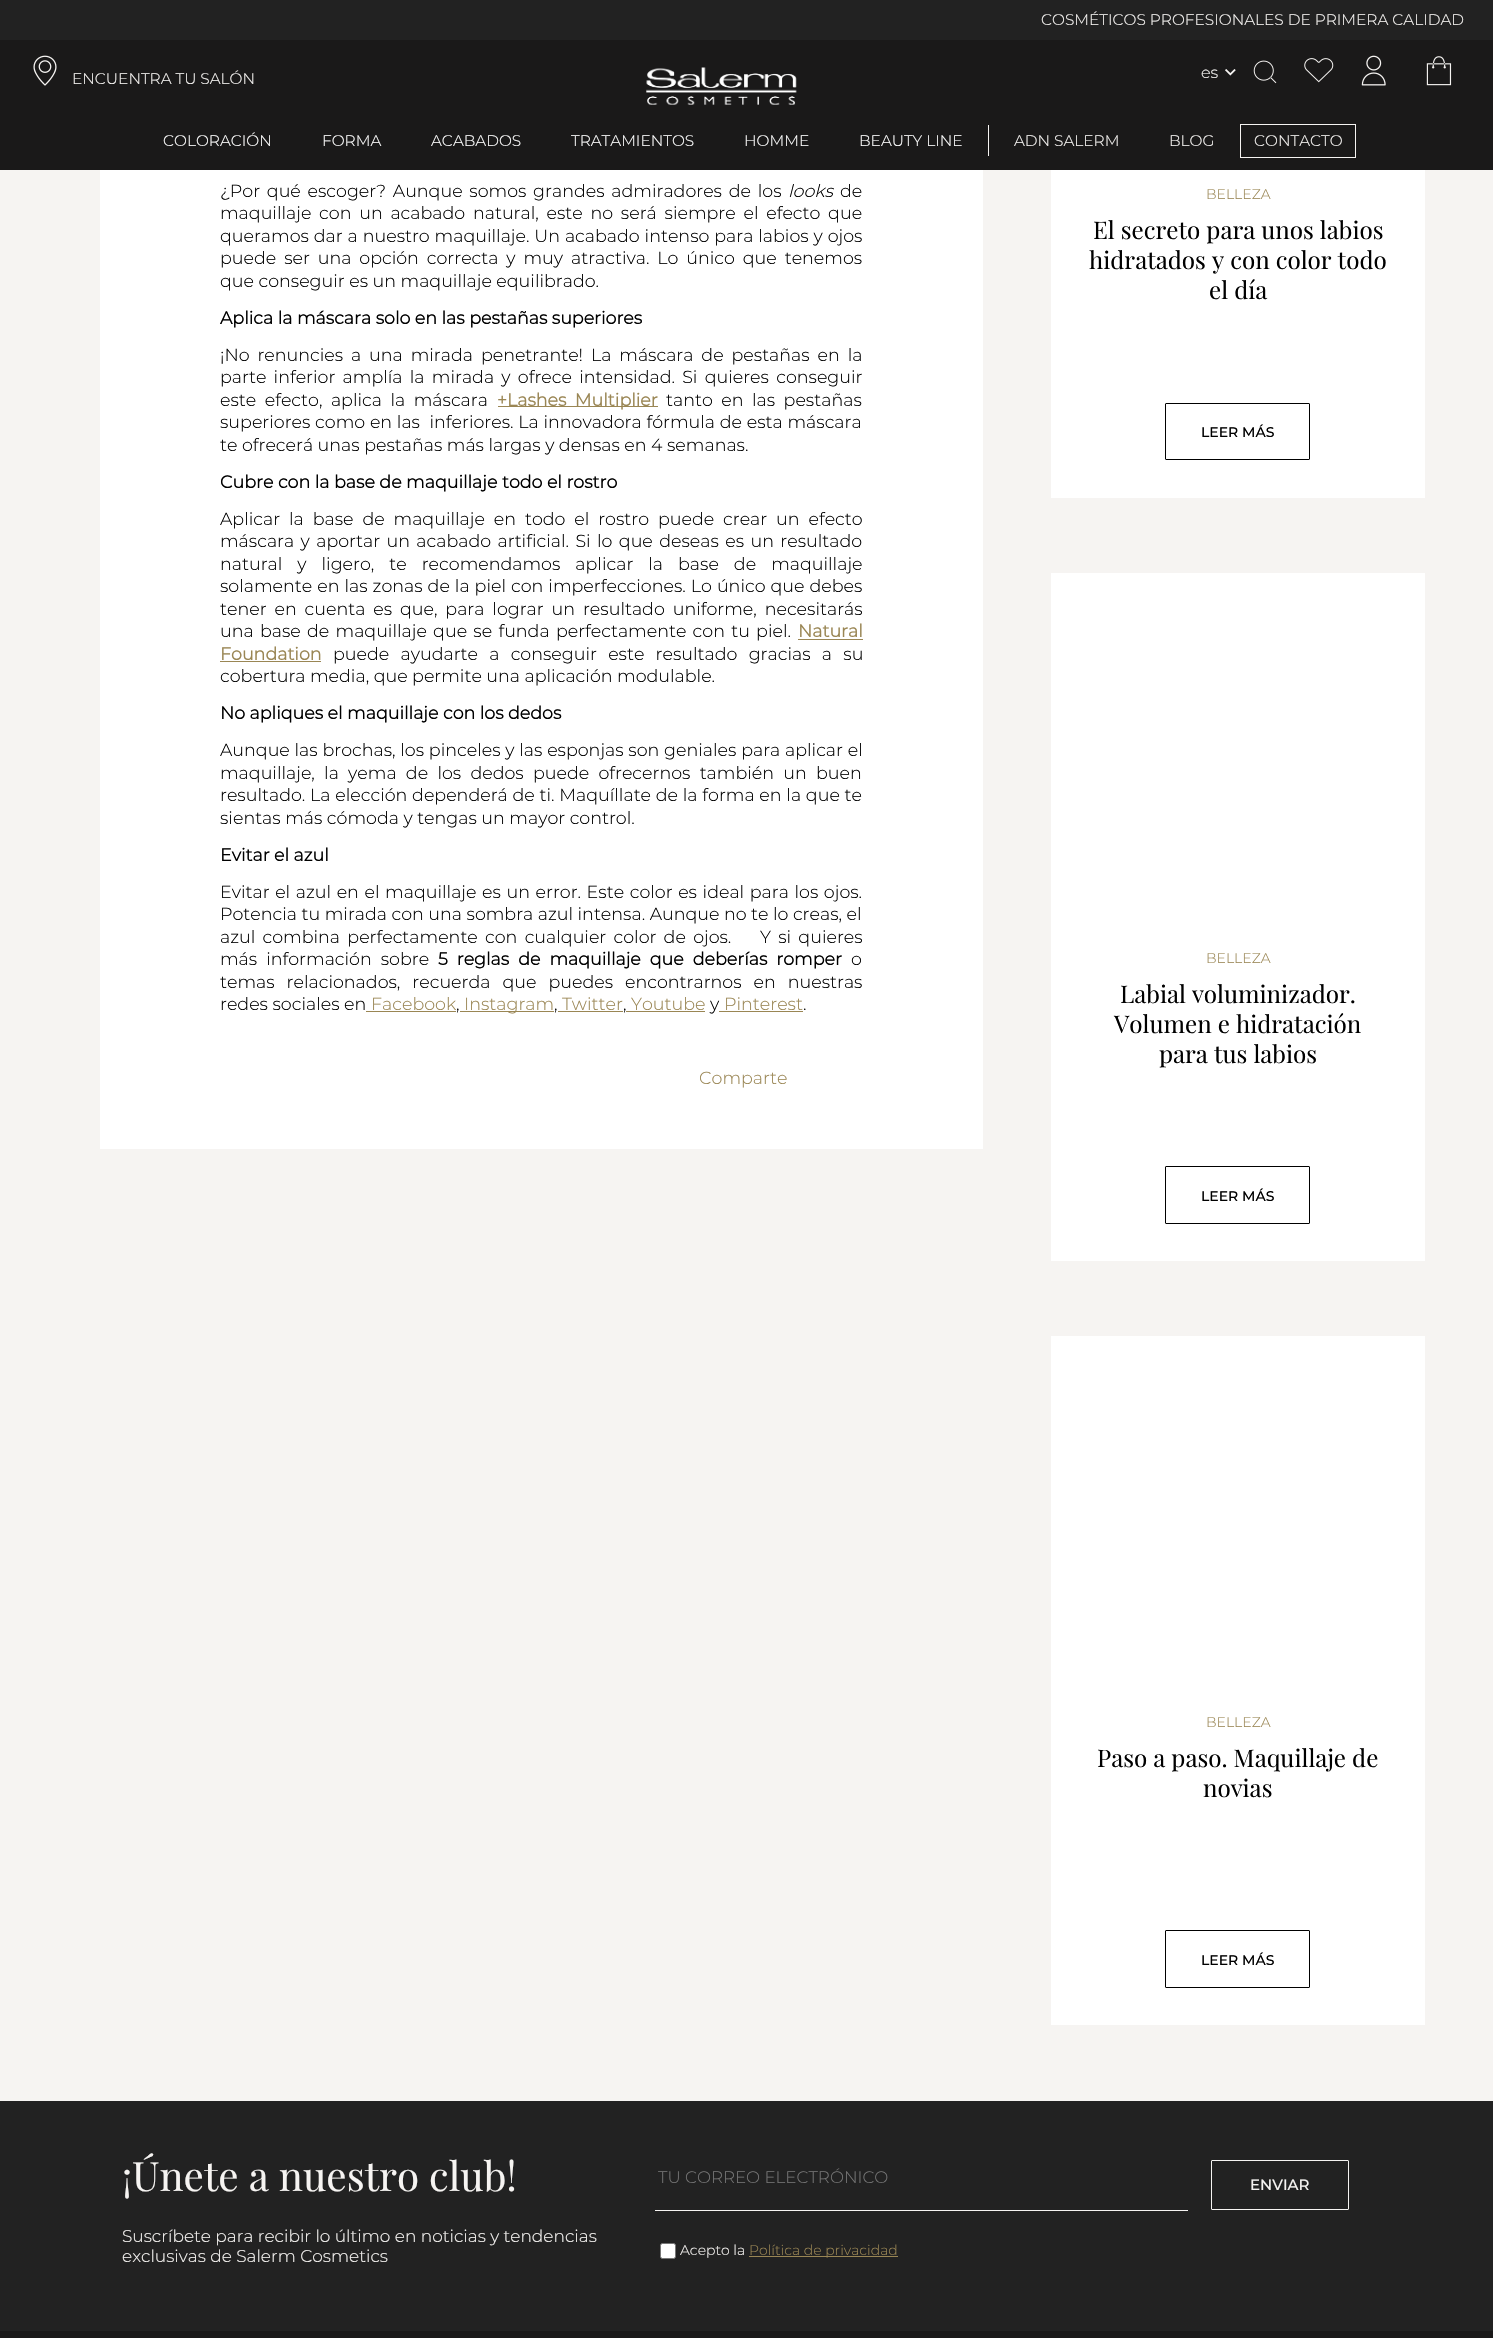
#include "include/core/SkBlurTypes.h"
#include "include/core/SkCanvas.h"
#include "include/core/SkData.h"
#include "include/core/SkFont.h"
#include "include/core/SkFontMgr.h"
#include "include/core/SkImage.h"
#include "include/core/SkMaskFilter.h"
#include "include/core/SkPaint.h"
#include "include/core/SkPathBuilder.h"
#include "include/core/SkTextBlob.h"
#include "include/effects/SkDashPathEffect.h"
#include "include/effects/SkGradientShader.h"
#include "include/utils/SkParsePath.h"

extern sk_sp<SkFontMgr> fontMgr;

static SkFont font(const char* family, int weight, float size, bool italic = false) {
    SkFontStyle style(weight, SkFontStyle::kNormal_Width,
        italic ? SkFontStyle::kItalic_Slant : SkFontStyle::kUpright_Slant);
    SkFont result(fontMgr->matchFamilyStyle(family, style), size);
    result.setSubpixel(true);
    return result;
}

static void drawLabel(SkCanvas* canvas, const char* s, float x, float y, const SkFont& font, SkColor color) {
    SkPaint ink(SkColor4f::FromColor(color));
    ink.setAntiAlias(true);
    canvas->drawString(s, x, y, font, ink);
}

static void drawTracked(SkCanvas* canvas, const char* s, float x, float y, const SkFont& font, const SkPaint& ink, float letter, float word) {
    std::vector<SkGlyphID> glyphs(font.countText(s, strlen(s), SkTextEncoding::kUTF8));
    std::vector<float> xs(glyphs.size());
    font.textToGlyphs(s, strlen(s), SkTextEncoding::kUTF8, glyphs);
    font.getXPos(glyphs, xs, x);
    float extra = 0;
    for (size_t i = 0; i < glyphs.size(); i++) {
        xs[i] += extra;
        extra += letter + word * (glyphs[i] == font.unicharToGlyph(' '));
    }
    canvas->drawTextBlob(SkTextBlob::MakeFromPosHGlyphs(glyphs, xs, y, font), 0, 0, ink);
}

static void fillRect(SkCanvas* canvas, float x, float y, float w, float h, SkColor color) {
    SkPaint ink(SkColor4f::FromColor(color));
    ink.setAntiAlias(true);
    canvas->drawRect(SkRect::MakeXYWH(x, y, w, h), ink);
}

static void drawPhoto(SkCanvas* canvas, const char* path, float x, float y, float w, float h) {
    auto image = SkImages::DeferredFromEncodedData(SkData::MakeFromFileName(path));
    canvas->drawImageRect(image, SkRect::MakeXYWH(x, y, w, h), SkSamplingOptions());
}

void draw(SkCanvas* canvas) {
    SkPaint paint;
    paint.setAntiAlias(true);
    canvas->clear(0xFFF6F4F2);
    fillRect(canvas, 0, 40, 1493, 130, 0xFF1A1919);
    fillRect(canvas, 0, 0, 1493, 40, 0xFF222222);
    SkFont font1 = font("Montserrat", 300, 15.4f);
    drawLabel(canvas, "COSMÉTICOS PROFESIONALES DE PRIMERA CALIDAD", 1041, 25, font1, 0xFFF6F4F2);
    drawPhoto(canvas, "assets/img1.png", 33, 55, 24, 31);
    drawLabel(canvas, "ENCUENTRA TU SALÓN", 72, 84, font1, 0xFFF6F4F2);
    drawPhoto(canvas, "assets/img2.png", 646, 67, 151, 38);
    SkFont font2 = font("Montserrat", 300, 16);
    drawLabel(canvas, "es", 1201, 78, font2, 0xFFF6F4F2);
    drawPhoto(canvas, "assets/img3.png", 1225, 69, 11, 7);
    drawPhoto(canvas, "assets/img4.png", 1253, 60, 24, 24);
    drawPhoto(canvas, "assets/img5.png", 1304, 58, 30, 25);
    drawPhoto(canvas, "assets/img6.png", 1361, 55, 25, 31);
    drawPhoto(canvas, "assets/img7.png", 1426, 56, 26, 30);
    drawLabel(canvas, "COLORACIÓN", 163, 146, font1, 0xFFFFFFFF);
    drawLabel(canvas, "FORMA", 322, 146, font1, 0xFFFFFFFF);
    drawLabel(canvas, "ACABADOS", 431, 146, font1, 0xFFFFFFFF);
    drawLabel(canvas, "TRATAMIENTOS", 571, 146, font1, 0xFFFFFFFF);
    drawLabel(canvas, "HOMME", 744, 146, font1, 0xFFFFFFFF);
    fillRect(canvas, 988, 125, 1, 31, 0xFFF6F4F2);
    drawLabel(canvas, "BEAUTY LINE", 859, 146, font1, 0xFFFFFFFF);
    drawLabel(canvas, "ADN SALERM", 1014, 146, font1, 0xFFF6F4F2);
    drawLabel(canvas, "BLOG", 1169, 146, font1, 0xFFF6F4F2);
    paint.setStroke(true);
    paint.setStrokeWidth(1);
    paint.setColor(0xFFF6F4F2);
    canvas->drawRect(SkRect::MakeXYWH(1240.5f, 124.5f, 115, 33), paint);
    drawLabel(canvas, "CONTACTO", 1254, 146, font1, 0xFFF6F4F2);
    fillRect(canvas, 100, 170, 883, 979, 0xFFFFFFFF);
    SkFont font3 = font("Montserrat", 300, 17.5f);
    paint.setStroke(false);
    paint.setColor(0xFF000000);
    drawTracked(canvas, "¿Por qué escoger? Aunque somos grandes admiradores de los", 220, 197, font3, paint, 0, 2.25f);
    SkFont font4 = font("Montserrat", 300, 17.5f, true);
    drawLabel(canvas, "looks", 788, 197, font4, 0xFF000000);
    drawLabel(canvas, "de", 840, 197, font3, 0xFF000000);
    drawTracked(canvas, "maquillaje con un acabado natural, este no será siempre el efecto que", 220, 219, font3, paint, 0, 3.25f);
    drawTracked(canvas, "queramos dar a nuestro maquillaje. Un acabado intenso para labios y ojos", 220, 242, font3, paint, 0, 0.4f);
    drawTracked(canvas, "puede ser una opción correcta y muy atractiva. Lo único que tenemos", 220, 264, font3, paint, 0, 3.4f);
    drawLabel(canvas, "que conseguir es un maquillaje equilibrado.", 220, 287, font3, 0xFF000000);
    SkFont font5 = font("Montserrat", 700, 17.5f);
    drawLabel(canvas, "Aplica la máscara solo en las pestañas superiores", 220, 324, font5, 0xFF000000);
    drawTracked(canvas, "¡No renuncies a una mirada penetrante! La máscara de pestañas en la", 220, 361, font3, paint, 0, 3.4f);
    drawTracked(canvas, "parte inferior amplía la mirada y ofrece intensidad. Si quieres conseguir", 220, 383, font3, paint, 0, 2.75f);
    drawTracked(canvas, "este efecto, aplica la máscara", 220, 406, font3, paint, 0, 4);
    fillRect(canvas, 498, 406, 160, 1, 0xFF9A8654);
    paint.setColor(0xFF9A8654);
    drawTracked(canvas, "+Lashes Multiplier", 497, 406, font5, paint, 0, 4);
    paint.setColor(0xFF000000);
    drawTracked(canvas, "tanto en las pestañas", 666, 406, font3, paint, 0, 4);
    drawTracked(canvas, "superiores como en las  inferiores. La innovadora fórmula de esta máscara", 220, 428, font3, paint, 0, 0.25f);
    drawLabel(canvas, "te ofrecerá unas pestañas más largas y densas en 4 semanas.", 220, 451, font3, 0xFF000000);
    drawLabel(canvas, "Cubre con la base de maquillaje todo el rostro", 220, 488, font5, 0xFF000000);
    drawTracked(canvas, "Aplicar la base de maquillaje en todo el rostro puede crear un efecto", 220, 525, font3, paint, 0, 4.4f);
    drawTracked(canvas, "máscara y aportar un acabado artificial. Si lo que deseas es un resultado", 220, 547, font3, paint, 0, 1.9f);
    drawTracked(canvas, "natural y ligero, te recomendamos aplicar la base de maquillaje", 220, 570, font3, paint, 0, 10.5f);
    drawTracked(canvas, "solamente en las zonas de la piel con imperfecciones. Lo único que debes", 220, 592, font3, paint, 0, 0.5f);
    drawTracked(canvas, "tener en cuenta es que, para lograr un resultado uniforme, necesitarás", 220, 615, font3, paint, 0, 3.4f);
    drawTracked(canvas, "una base de maquillaje que se funda perfectamente con tu piel.", 220, 637, font3, paint, 0, 1.75f);
    drawLabel(canvas, "Natural", 798, 637, font5, 0xFF9A8654);
    fillRect(canvas, 798, 639, 65, 1, 0xFF9A8654);
    drawLabel(canvas, "Foundation", 220, 660, font5, 0xFF9A8654);
    fillRect(canvas, 220, 661, 101, 1, 0xFF9A8654);
    drawTracked(canvas, "puede ayudarte a conseguir este resultado gracias a su", 333, 660, font3, paint, 0, 6.75f);
    drawLabel(canvas, "cobertura media, que permite una aplicación modulable.", 220, 682, font3, 0xFF000000);
    drawLabel(canvas, "No apliques el maquillaje con los dedos", 220, 719, font5, 0xFF000000);
    drawTracked(canvas, "Aunque las brochas, los pinceles y las esponjas son geniales para aplicar el", 220, 756, font3, paint, 0, 0.25f);
    drawTracked(canvas, "maquillaje, la yema de los dedos puede ofrecernos también un buen", 220, 779, font3, paint, 0, 4.75f);
    drawTracked(canvas, "resultado. La elección dependerá de ti. Maquíllate de la forma en la que te", 220, 801, font3, paint, 0, 0.25f);
    drawLabel(canvas, "sientas más cómoda y tengas un mayor control.", 220, 824, font3, 0xFF000000);
    drawLabel(canvas, "Evitar el azul", 220, 861, font5, 0xFF000000);
    drawTracked(canvas, "Evitar el azul en el maquillaje es un error. Este color es ideal para los ojos.", 220, 898, font3, paint, 0, 1.1f);
    drawLabel(canvas, "Potencia tu mirada con una sombra azul intensa. Aunque no te lo creas, el", 220, 920, font3, 0xFF000000);
    drawTracked(canvas, "azul combina perfectamente con cualquier color de ojos.", 220, 943, font3, paint, 0, 2.75f);
    drawTracked(canvas, "Y si quieres", 760, 943, font3, paint, 0, 2.75f);
    drawTracked(canvas, "más información sobre", 220, 965, font3, paint, 0, 4.5f);
    drawTracked(canvas, "5 reglas de maquillaje que deberías romper", 438, 965, font5, paint, 0, 4.5f);
    drawLabel(canvas, "o", 851, 965, font3, 0xFF000000);
    drawTracked(canvas, "temas relacionados, recuerda que puedes encontrarnos en nuestras", 220, 988, font3, paint, 0, 7.5f);
    drawLabel(canvas, "redes sociales en", 220, 1010, font3, 0xFF000000);
    drawLabel(canvas, "Facebook", 371, 1010, font3, 0xFF9A8654);
    fillRect(canvas, 366, 1011, 90, 1, 0xFF9A8654);
    drawLabel(canvas, ",", 456, 1010, font3, 0xFF000000);
    fillRect(canvas, 460, 1011, 94, 1, 0xFF9A8654);
    drawLabel(canvas, "Instagram", 464, 1010, font3, 0xFF9A8654);
    drawLabel(canvas, ",", 554, 1010, font3, 0xFF000000);
    drawLabel(canvas, "Twitter", 562, 1010, font3, 0xFF9A8654);
    fillRect(canvas, 558, 1011, 65, 1, 0xFF9A8654);
    drawLabel(canvas, ",", 623, 1010, font3, 0xFF000000);
    drawLabel(canvas, "Youtube", 631, 1010, font3, 0xFF9A8654);
    fillRect(canvas, 626, 1011, 79, 1, 0xFF9A8654);
    drawLabel(canvas, "y", 710, 1010, font3, 0xFF000000);
    drawLabel(canvas, "Pinterest", 724, 1010, font3, 0xFF9A8654);
    fillRect(canvas, 719, 1011, 84, 1, 0xFF9A8654);
    drawLabel(canvas, ".", 803, 1010, font3, 0xFF000000);
    drawLabel(canvas, "Comparte", 699, 1084, font3, 0xFF9A8654);
    fillRect(canvas, 1051, 170, 374, 328, 0xFFFFFFFF);
    SkFont font6 = font("Montserrat", 300, 14);
    drawLabel(canvas, "BELLEZA", 1206, 199, font6, 0xFF9A8654);
    SkFont font7 = font("Playfair Display", 400, 30);
    drawLabel(canvas, "El secreto para unos labios", 1093, 239, font7, 0xFF000000);
    drawLabel(canvas, "hidratados y con color todo", 1089, 269, font7, 0xFF000000);
    drawLabel(canvas, "el día", 1209, 299, font7, 0xFF000000);
    paint.setStroke(true);
    canvas->drawRoundRect(SkRect::MakeXYWH(1165.5f, 403.5f, 144, 56), 0.5f, 0.5f, paint);
    SkFont font8 = font("Montserrat", 500, 14);
    drawLabel(canvas, "LEER MÁS", 1201, 437, font8, 0xFF000000);
    fillRect(canvas, 1051, 573, 374, 688, 0xFFFFFFFF);
    drawLabel(canvas, "BELLEZA", 1206, 963, font6, 0xFF9A8654);
    drawLabel(canvas, "Labial voluminizador.", 1120, 1003, font7, 0xFF000000);
    drawLabel(canvas, "Volumen e hidratación", 1114, 1033, font7, 0xFF000000);
    drawLabel(canvas, "para tus labios", 1159, 1063, font7, 0xFF000000);
    canvas->drawRoundRect(SkRect::MakeXYWH(1165.5f, 1166.5f, 144, 57), 0.5f, 0.5f, paint);
    drawLabel(canvas, "LEER MÁS", 1201, 1201, font8, 0xFF000000);
    fillRect(canvas, 1051, 1336, 374, 689, 0xFFFFFFFF);
    drawLabel(canvas, "BELLEZA", 1206, 1727, font6, 0xFF9A8654);
    drawLabel(canvas, "Paso a paso. Maquillaje de", 1097, 1767, font7, 0xFF000000);
    drawLabel(canvas, "novias", 1203, 1797, font7, 0xFF000000);
    canvas->drawRoundRect(SkRect::MakeXYWH(1165.5f, 1930.5f, 144, 57), 0.5f, 0.5f, paint);
    drawLabel(canvas, "LEER MÁS", 1201, 1965, font8, 0xFF000000);
    fillRect(canvas, 0, 2331, 1493, 7, 0xFF1A1919);
    fillRect(canvas, 0, 2101, 1493, 230, 0xFF222222);
    SkFont font9 = font("Playfair Display", 400, 50);
    drawLabel(canvas, "¡Únete a nuestro club!", 122, 2191, font9, 0xFFF6F4F2);
    SkFont font10 = font("Montserrat", 300, 17);
    drawLabel(canvas, "Suscríbete para recibir lo último en noticias y tendencias", 122, 2242, font10, 0xFFF6F4F2);
    drawLabel(canvas, "exclusivas de Salerm Cosmetics", 122, 2262, font10, 0xFFF6F4F2);
    fillRect(canvas, 655, 2210, 533, 1, 0xFFF6F4F2);
    SkFont font11 = font("Montserrat", 300, 16.7f);
    drawLabel(canvas, "TU CORREO ELECTRÓNICO", 658, 2183, font11, 0xFF757575);
    paint.setStroke(false);
    paint.setColor(0xFFFFFFFF);
    canvas->drawRoundRect(SkRect::MakeXYWH(660.5f, 2243.5f, 15, 15), 2, 2, paint);
    paint.setStroke(true);
    paint.setColor(0xFF767676);
    canvas->drawRoundRect(SkRect::MakeXYWH(660.5f, 2243.5f, 15, 15), 2, 2, paint);
    drawLabel(canvas, "Acepto la", 680, 2255, font6, 0xFFF6F4F2);
    fillRect(canvas, 749, 2256, 149, 1, 0xFF9A8654);
    drawLabel(canvas, "Política de privacidad", 749, 2255, font6, 0xFF9A8654);
    paint.setColor(0xFFF6F4F2);
    canvas->drawRoundRect(SkRect::MakeXYWH(1211.5f, 2160.5f, 137, 49), 0.5f, 0.5f, paint);
    SkFont font12 = font("Montserrat", 500, 15);
    drawLabel(canvas, "ENVIAR", 1250, 2190, font12, 0xFFF6F4F2);
}
